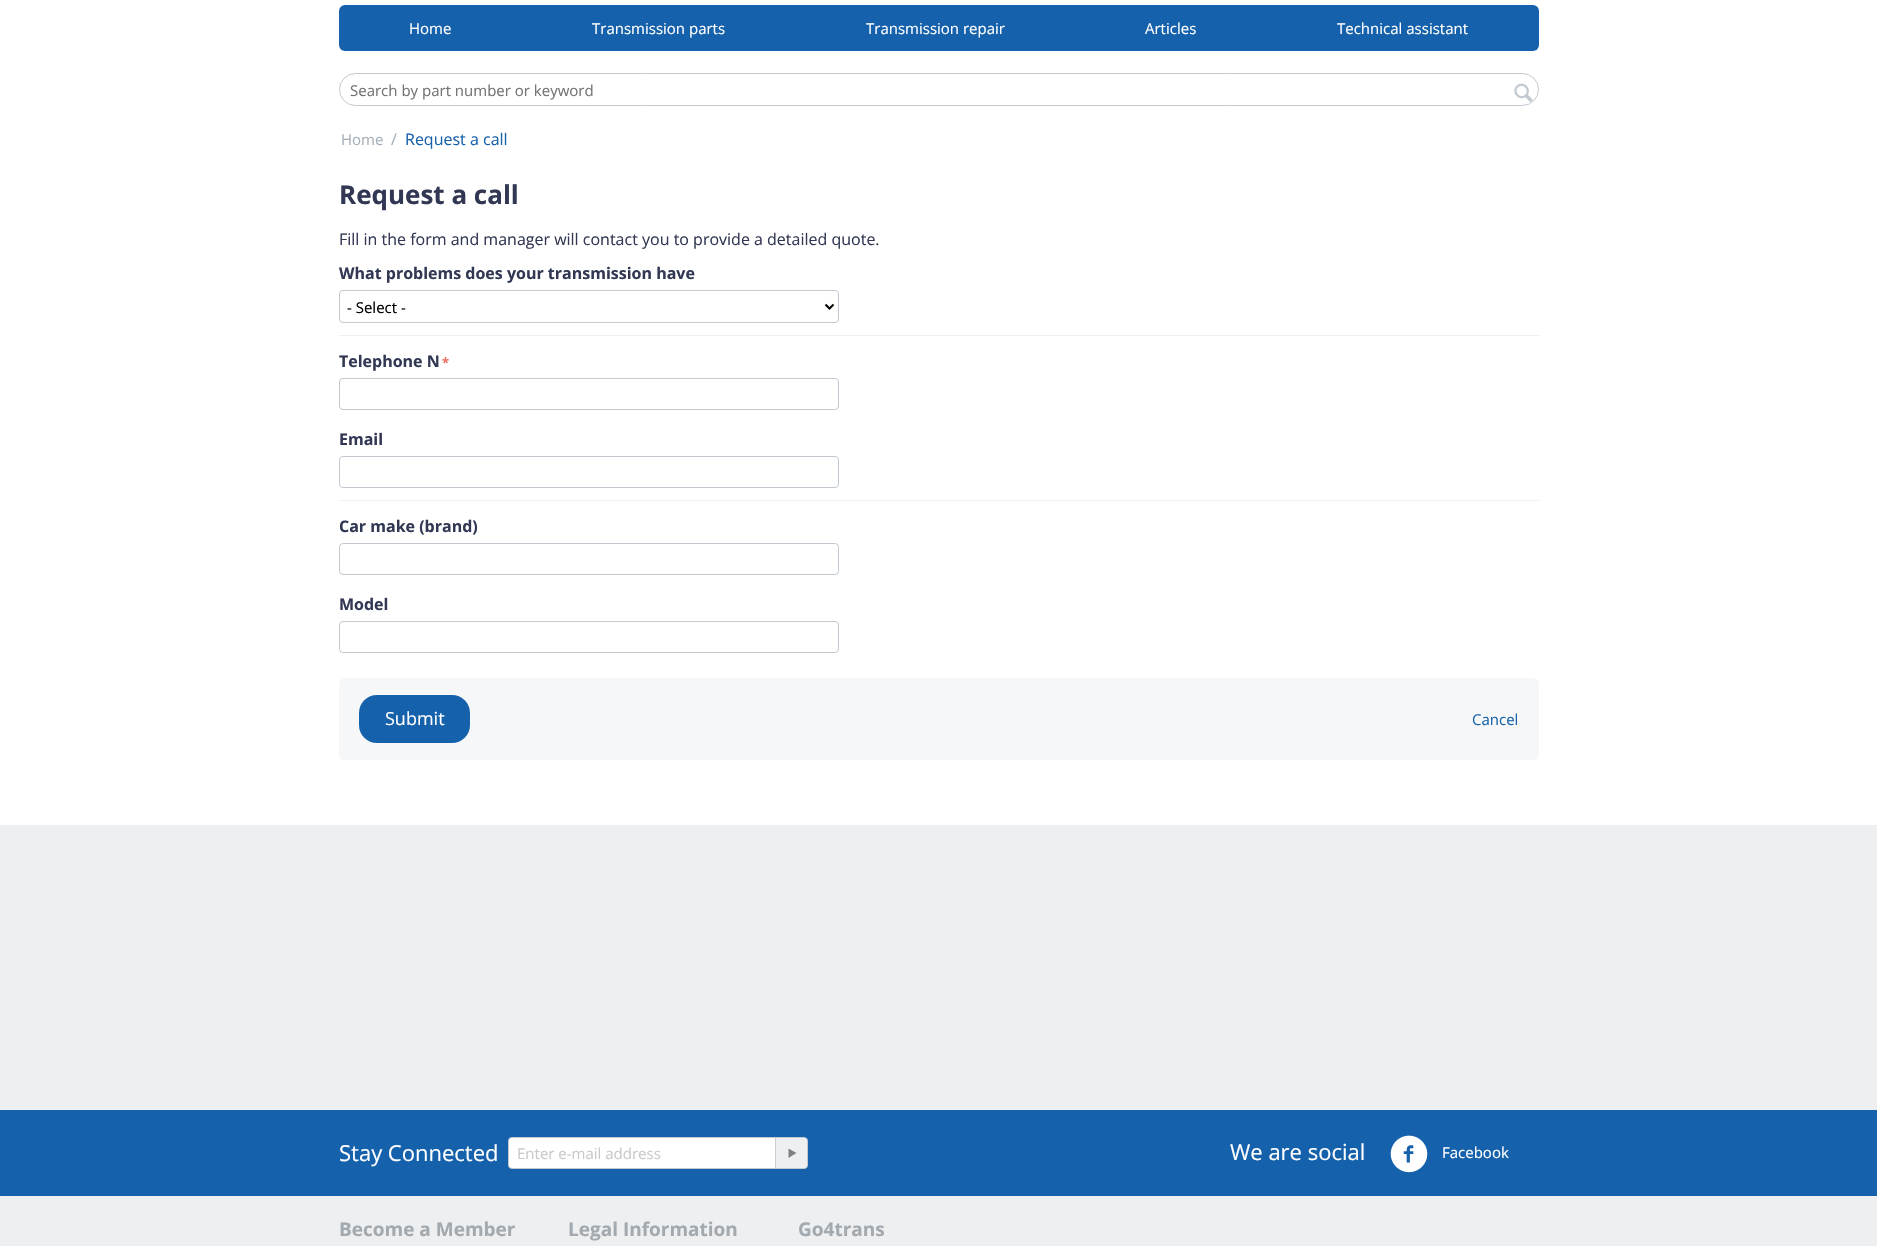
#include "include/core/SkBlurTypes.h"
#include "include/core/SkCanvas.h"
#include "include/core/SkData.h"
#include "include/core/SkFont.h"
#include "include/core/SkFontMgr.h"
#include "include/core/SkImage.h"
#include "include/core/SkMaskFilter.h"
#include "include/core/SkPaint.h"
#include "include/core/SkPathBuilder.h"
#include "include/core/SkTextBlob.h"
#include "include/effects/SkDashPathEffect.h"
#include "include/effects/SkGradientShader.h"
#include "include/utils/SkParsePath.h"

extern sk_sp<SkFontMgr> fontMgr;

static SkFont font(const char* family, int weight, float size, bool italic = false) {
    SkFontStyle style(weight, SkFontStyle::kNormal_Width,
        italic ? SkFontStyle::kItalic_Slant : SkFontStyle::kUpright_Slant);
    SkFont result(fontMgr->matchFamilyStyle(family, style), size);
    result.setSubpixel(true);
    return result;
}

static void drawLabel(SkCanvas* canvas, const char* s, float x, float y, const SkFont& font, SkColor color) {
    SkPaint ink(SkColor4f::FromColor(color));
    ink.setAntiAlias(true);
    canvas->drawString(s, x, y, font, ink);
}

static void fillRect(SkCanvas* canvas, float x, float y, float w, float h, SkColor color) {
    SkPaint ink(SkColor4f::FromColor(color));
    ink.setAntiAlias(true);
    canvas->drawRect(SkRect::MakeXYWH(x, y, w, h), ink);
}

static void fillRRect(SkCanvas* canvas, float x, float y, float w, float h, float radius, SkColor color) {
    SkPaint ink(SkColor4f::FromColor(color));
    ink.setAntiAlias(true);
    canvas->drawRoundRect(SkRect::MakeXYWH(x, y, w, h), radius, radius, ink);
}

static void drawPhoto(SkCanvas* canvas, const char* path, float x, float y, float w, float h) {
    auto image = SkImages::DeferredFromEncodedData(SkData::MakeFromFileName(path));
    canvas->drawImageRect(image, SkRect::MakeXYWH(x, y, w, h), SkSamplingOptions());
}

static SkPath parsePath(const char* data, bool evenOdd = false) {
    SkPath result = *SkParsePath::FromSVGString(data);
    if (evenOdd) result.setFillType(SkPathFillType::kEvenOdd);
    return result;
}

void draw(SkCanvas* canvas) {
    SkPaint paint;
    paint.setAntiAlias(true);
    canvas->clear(0xFFFFFFFF);
    fillRRect(canvas, 339, 5, 1200, 46, 6, 0xFF1661AB);
    SkFont font1 = font("Open Sans", 400, 15);
    drawLabel(canvas, "Home", 409, 34, font1, 0xFFFFFFFF);
    drawLabel(canvas, "Transmission parts", 592, 34, font1, 0xFFFFFFFF);
    drawLabel(canvas, "Transmission repair", 866, 34, font1, 0xFFFFFFFF);
    drawLabel(canvas, "Articles", 1145, 34, font1, 0xFFFFFFFF);
    drawLabel(canvas, "Technical assistant", 1337, 34, font1, 0xFFFFFFFF);
    paint.setStroke(true);
    paint.setStrokeWidth(1);
    paint.setColor(0xFFC2C9D0);
    canvas->drawRoundRect(SkRect::MakeXYWH(339.5f, 73.5f, 1199, 32), 16, 16, paint);
    drawLabel(canvas, "Search by part number or keyword", 350, 96, font1, 0xFF737373);
    drawPhoto(canvas, "assets/img1.png", 1514, 83, 19, 19);
    drawLabel(canvas, "Home", 341, 145, font1, 0xFFA5AFB9);
    SkFont font2 = font("Open Sans", 400, 16);
    drawLabel(canvas, "/", 391, 145, font2, 0xFFA5AFB9);
    drawLabel(canvas, "Request a call", 405, 145, font2, 0xFF1661AB);
    SkFont font3 = font("Open Sans", 700, 26);
    drawLabel(canvas, "Request a call", 339, 204, font3, 0xFF323854);
    drawLabel(canvas, "Fill in the form and manager will contact you to provide a detailed quote.", 339, 245, font2, 0xFF323854);
    SkFont font4 = font("Open Sans", 700, 16);
    drawLabel(canvas, "What problems does your transmission have", 339, 279, font4, 0xFF323854);
    canvas->drawRoundRect(SkRect::MakeXYWH(339.5f, 290.5f, 499, 32), 3.5f, 3.5f, paint);
    paint.setStrokeWidth(2);
    paint.setColor(0xFF000000);
    canvas->drawPath(parsePath("M825.5 304.5L829.5 308.5L833.5 304.5"), paint);
    drawLabel(canvas, "- Select -", 347, 313, font1, 0xFF000000);
    fillRect(canvas, 339, 335, 1200, 1, 0xFFEDEFF1);
    drawLabel(canvas, "Telephone N", 339, 367, font4, 0xFF323854);
    SkFont font5 = font("Open Sans", 700, 13);
    drawLabel(canvas, "*", 442, 367, font5, 0xFFEA7162);
    paint.setStrokeWidth(1);
    paint.setColor(0xFFC2C9D0);
    canvas->drawRoundRect(SkRect::MakeXYWH(339.5f, 378.5f, 499, 31), 3.5f, 3.5f, paint);
    drawLabel(canvas, "Email", 339, 445, font4, 0xFF323854);
    canvas->drawRoundRect(SkRect::MakeXYWH(339.5f, 456.5f, 499, 31), 3.5f, 3.5f, paint);
    fillRect(canvas, 339, 500, 1200, 1, 0xFFEDEFF1);
    drawLabel(canvas, "Car make (brand)", 339, 532, font4, 0xFF323854);
    canvas->drawRoundRect(SkRect::MakeXYWH(339.5f, 543.5f, 499, 31), 3.5f, 3.5f, paint);
    drawLabel(canvas, "Model", 339, 610, font4, 0xFF323854);
    canvas->drawRoundRect(SkRect::MakeXYWH(339.5f, 621.5f, 499, 31), 3.5f, 3.5f, paint);
    fillRRect(canvas, 339, 678, 1200, 82, 6, 0xFFF6F7F8);
    fillRRect(canvas, 359, 695, 111, 48, 18, 0xFF1661AB);
    SkFont font6 = font("Open Sans", 400, 18);
    drawLabel(canvas, "Submit", 385, 725, font6, 0xFFFFFFFF);
    drawLabel(canvas, "Cancel", 1472, 725, font1, 0xFF1661AB);
    fillRect(canvas, 0, 825, 1877, 421, 0xFFEDEFF1);
    fillRect(canvas, 0, 1110, 1877, 86, 0xFF1661AB);
    SkFont font7 = font("Open Sans", 400, 22);
    drawLabel(canvas, "Stay Connected", 339, 1161, font7, 0xFFFFFFFF);
    paint.setStroke(false);
    paint.setColor(0xFFFFFFFF);
    canvas->drawRoundRect(SkRect::MakeXYWH(508.5f, 1137.5f, 299, 31), 3.5f, 3.5f, paint);
    paint.setStroke(true);
    paint.setColor(0xFFC2C9D0);
    canvas->drawRoundRect(SkRect::MakeXYWH(508.5f, 1137.5f, 299, 31), 3.5f, 3.5f, paint);
    drawLabel(canvas, "Enter e-mail address", 517, 1159, font1, 0xFFC9C9C9);
    paint.setStroke(false);
    paint.setColor(0xFFEDEFF1);
    canvas->drawPath(parsePath("M775 1138H803C805 1138 807 1140 807 1142V1164C807 1166 805 1168 803 1168H775Z"), paint);
    fillRect(canvas, 775, 1138, 1, 30, 0xFFCDCDCD);
    paint.setColor(0xFF808080);
    canvas->drawPath(parsePath("M788.5 1148.5L796.5 1153L788.5 1158Z"), paint);
    drawLabel(canvas, "We are social", 1230, 1160, font7, 0xFFFFFFFF);
    drawPhoto(canvas, "assets/img2.png", 1390, 1135, 38, 38);
    drawLabel(canvas, "Facebook", 1442, 1158, font1, 0xFFFFFFFF);
    SkFont font8 = font("Open Sans", 700, 19);
    drawLabel(canvas, "Become a Member", 339, 1236, font8, 0xFFA3AAAF);
    drawLabel(canvas, "Legal Information", 568, 1236, font8, 0xFFA3AAAF);
    drawLabel(canvas, "Go4trans", 798, 1236, font8, 0xFFA3AAAF);
}
